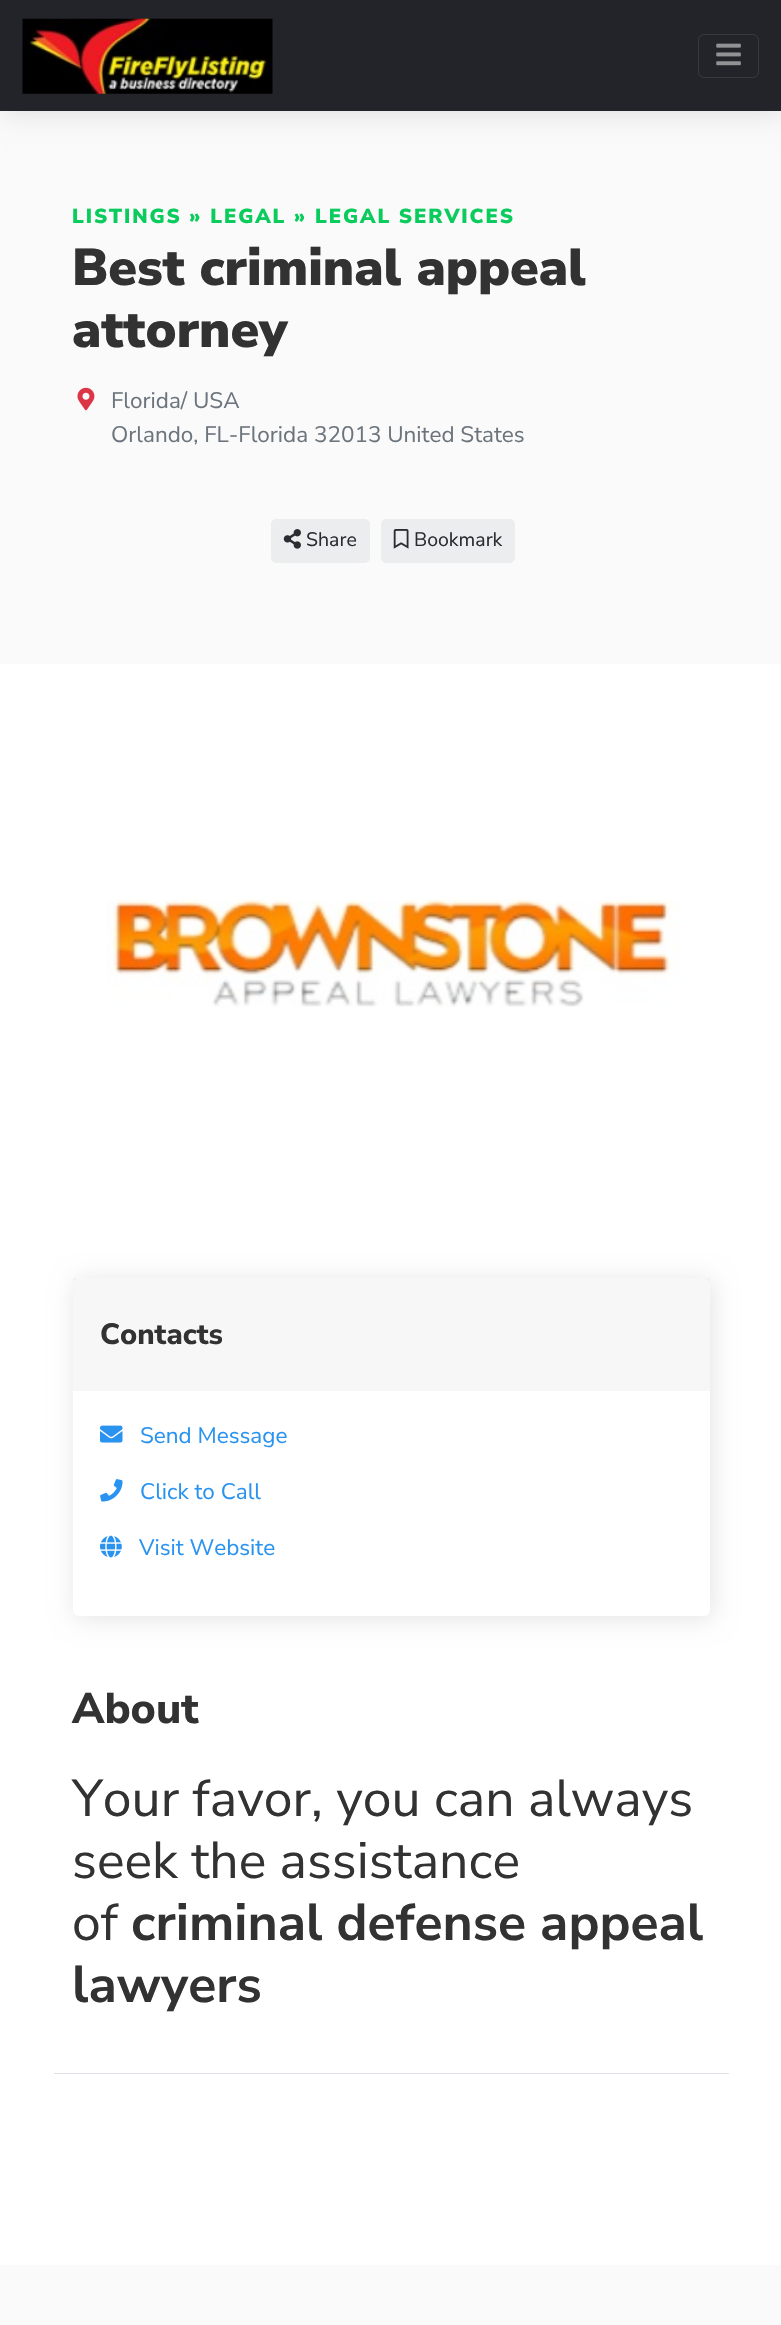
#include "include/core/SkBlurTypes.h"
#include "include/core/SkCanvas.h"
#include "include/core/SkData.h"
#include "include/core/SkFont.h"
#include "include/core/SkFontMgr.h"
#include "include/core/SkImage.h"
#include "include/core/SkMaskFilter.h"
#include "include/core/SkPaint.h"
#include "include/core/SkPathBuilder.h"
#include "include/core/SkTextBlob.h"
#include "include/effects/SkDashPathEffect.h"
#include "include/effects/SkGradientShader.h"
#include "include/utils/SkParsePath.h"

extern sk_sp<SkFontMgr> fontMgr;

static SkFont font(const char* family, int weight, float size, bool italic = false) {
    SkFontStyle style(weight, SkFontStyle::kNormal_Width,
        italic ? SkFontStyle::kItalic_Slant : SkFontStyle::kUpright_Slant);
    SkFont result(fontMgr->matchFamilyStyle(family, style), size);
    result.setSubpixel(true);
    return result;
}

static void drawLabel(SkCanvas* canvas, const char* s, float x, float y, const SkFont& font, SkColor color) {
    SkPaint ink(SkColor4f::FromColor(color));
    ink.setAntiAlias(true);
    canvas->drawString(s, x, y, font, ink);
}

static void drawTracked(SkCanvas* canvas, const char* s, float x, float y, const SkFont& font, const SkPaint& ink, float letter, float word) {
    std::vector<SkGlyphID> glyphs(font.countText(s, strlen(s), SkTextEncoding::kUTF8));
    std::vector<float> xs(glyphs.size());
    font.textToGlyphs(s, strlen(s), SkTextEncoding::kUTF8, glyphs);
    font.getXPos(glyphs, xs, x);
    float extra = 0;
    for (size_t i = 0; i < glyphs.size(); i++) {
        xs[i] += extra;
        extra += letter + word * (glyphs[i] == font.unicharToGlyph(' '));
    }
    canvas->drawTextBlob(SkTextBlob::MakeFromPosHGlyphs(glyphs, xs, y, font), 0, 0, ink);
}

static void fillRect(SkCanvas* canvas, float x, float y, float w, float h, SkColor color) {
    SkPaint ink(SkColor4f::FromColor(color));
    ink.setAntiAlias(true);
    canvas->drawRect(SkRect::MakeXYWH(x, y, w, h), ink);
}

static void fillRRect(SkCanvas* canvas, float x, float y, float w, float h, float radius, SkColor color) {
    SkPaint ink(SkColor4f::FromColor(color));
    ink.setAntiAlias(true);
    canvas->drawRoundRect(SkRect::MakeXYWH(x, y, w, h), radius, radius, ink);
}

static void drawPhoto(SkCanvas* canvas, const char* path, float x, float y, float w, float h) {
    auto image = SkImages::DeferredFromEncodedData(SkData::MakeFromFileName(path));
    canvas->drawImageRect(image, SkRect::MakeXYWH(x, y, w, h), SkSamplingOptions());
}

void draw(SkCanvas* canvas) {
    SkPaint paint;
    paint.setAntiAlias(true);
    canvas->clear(0xFFFFFFFF);
    fillRect(canvas, 0, 111, 781, 553, 0xFFFAFAFA);
    paint.setColor(0x1A000000);
    paint.setMaskFilter(SkMaskFilter::MakeBlur(kNormal_SkBlurStyle, 12.5f));
    canvas->drawRect(SkRect::MakeXYWH(3, 3, 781, 111), paint);
    paint.setMaskFilter(nullptr);
    fillRect(canvas, 0, 0, 781, 111, 0xFF232429);
    drawPhoto(canvas, "assets/img1.png", 22, 18, 251, 76);
    paint.setStroke(true);
    paint.setStrokeWidth(1);
    paint.setColor(0xFF393A3E);
    canvas->drawRoundRect(SkRect::MakeXYWH(698.5f, 34.5f, 60, 43), 5.5f, 5.5f, paint);
    drawPhoto(canvas, "assets/img2.png", 716, 43, 25, 23);
    SkFont font1 = font("Nunito Sans", 900, 20.25f);
    paint.setStroke(false);
    paint.setColor(0xFF0ACC5C);
    drawTracked(canvas, "LISTINGS » LEGAL » LEGAL SERVICES", 72, 223, font1, paint, 1.9f, 0);
    SkFont font2 = font("Nunito Sans", 900, 51.75f);
    drawLabel(canvas, "Best criminal appeal", 72, 285, font2, 0xFF323232);
    drawLabel(canvas, "attorney", 72, 347, font2, 0xFF323232);
    drawPhoto(canvas, "assets/img3.png", 77, 387, 18, 24);
    SkFont font3 = font("Nunito Sans", 400, 22.5f);
    drawLabel(canvas, "Florida/ USA", 111, 408, font3, 0xFF6C757D);
    drawLabel(canvas, "Orlando, FL-Florida 32013 United States", 111, 442, font3, 0xFF6C757D);
    paint.setColor(0xFFEBEDEF);
    canvas->drawRoundRect(SkRect::MakeXYWH(271.5f, 519.5f, 98, 43), 4.5f, 4.5f, paint);
    paint.setStroke(true);
    canvas->drawRoundRect(SkRect::MakeXYWH(271.5f, 519.5f, 98, 43), 4.5f, 4.5f, paint);
    drawPhoto(canvas, "assets/img4.png", 283, 529, 18, 20);
    SkFont font4 = font("Nunito Sans", 400, 19.5f);
    drawLabel(canvas, "Share", 306, 546, font4, 0xFF292D32);
    paint.setStroke(false);
    canvas->drawRoundRect(SkRect::MakeXYWH(381.5f, 519.5f, 133, 43), 4.5f, 4.5f, paint);
    paint.setStroke(true);
    canvas->drawRoundRect(SkRect::MakeXYWH(381.5f, 519.5f, 133, 43), 4.5f, 4.5f, paint);
    drawPhoto(canvas, "assets/img5.png", 393, 529, 16, 20);
    drawLabel(canvas, "Bookmark", 414, 546, font4, 0xFF292D32);
    drawPhoto(canvas, "assets/img6.png", 106, 899, 574, 108);
    paint.setStroke(false);
    paint.setColor(0x1A000000);
    paint.setMaskFilter(SkMaskFilter::MakeBlur(kNormal_SkBlurStyle, 12.5f));
    canvas->drawRoundRect(SkRect::MakeXYWH(75, 1280, 638, 339), 6, 6, paint);
    paint.setMaskFilter(nullptr);
    fillRRect(canvas, 73, 1278, 637, 338, 6, 0xFFFFFFFF);
    fillRect(canvas, 73, 1278, 637, 113, 0x08000000);
    SkFont font5 = font("Nunito Sans", 800, 29.25f);
    drawLabel(canvas, "Contacts", 100, 1344, font5, 0xFF323232);
    drawPhoto(canvas, "assets/img7.png", 100, 1425, 23, 18);
    drawLabel(canvas, "Send Message", 140, 1443, font3, 0xFF2993EF);
    drawPhoto(canvas, "assets/img8.png", 100, 1479, 23, 23);
    drawLabel(canvas, "Click to Call", 140, 1499, font3, 0xFF2993EF);
    drawPhoto(canvas, "assets/img9.png", 100, 1535, 22, 23);
    drawLabel(canvas, "Visit Website", 139, 1555, font3, 0xFF2993EF);
    fillRect(canvas, 54, 2073, 675, 1, 0xFFDEE2E6);
    SkFont font6 = font("Nunito Sans", 800, 43);
    drawLabel(canvas, "About", 72, 1723, font6, 0xFF323232);
    SkFont font7 = font("Nunito Sans", 400, 51.75f);
    drawLabel(canvas, "Your favor, you can always", 72, 1816, font7, 0xFF323232);
    drawLabel(canvas, "seek the assistance", 72, 1878, font7, 0xFF323232);
    drawLabel(canvas, "of", 72, 1940, font7, 0xFF323232);
    SkFont font8 = font("Nunito Sans", 700, 51.75f);
    drawLabel(canvas, "criminal defense appeal", 131, 1940, font8, 0xFF323232);
    drawLabel(canvas, "lawyers", 72, 2002, font8, 0xFF323232);
    fillRect(canvas, 0, 2265, 781, 60, 0xFFFAFAFA);
}
